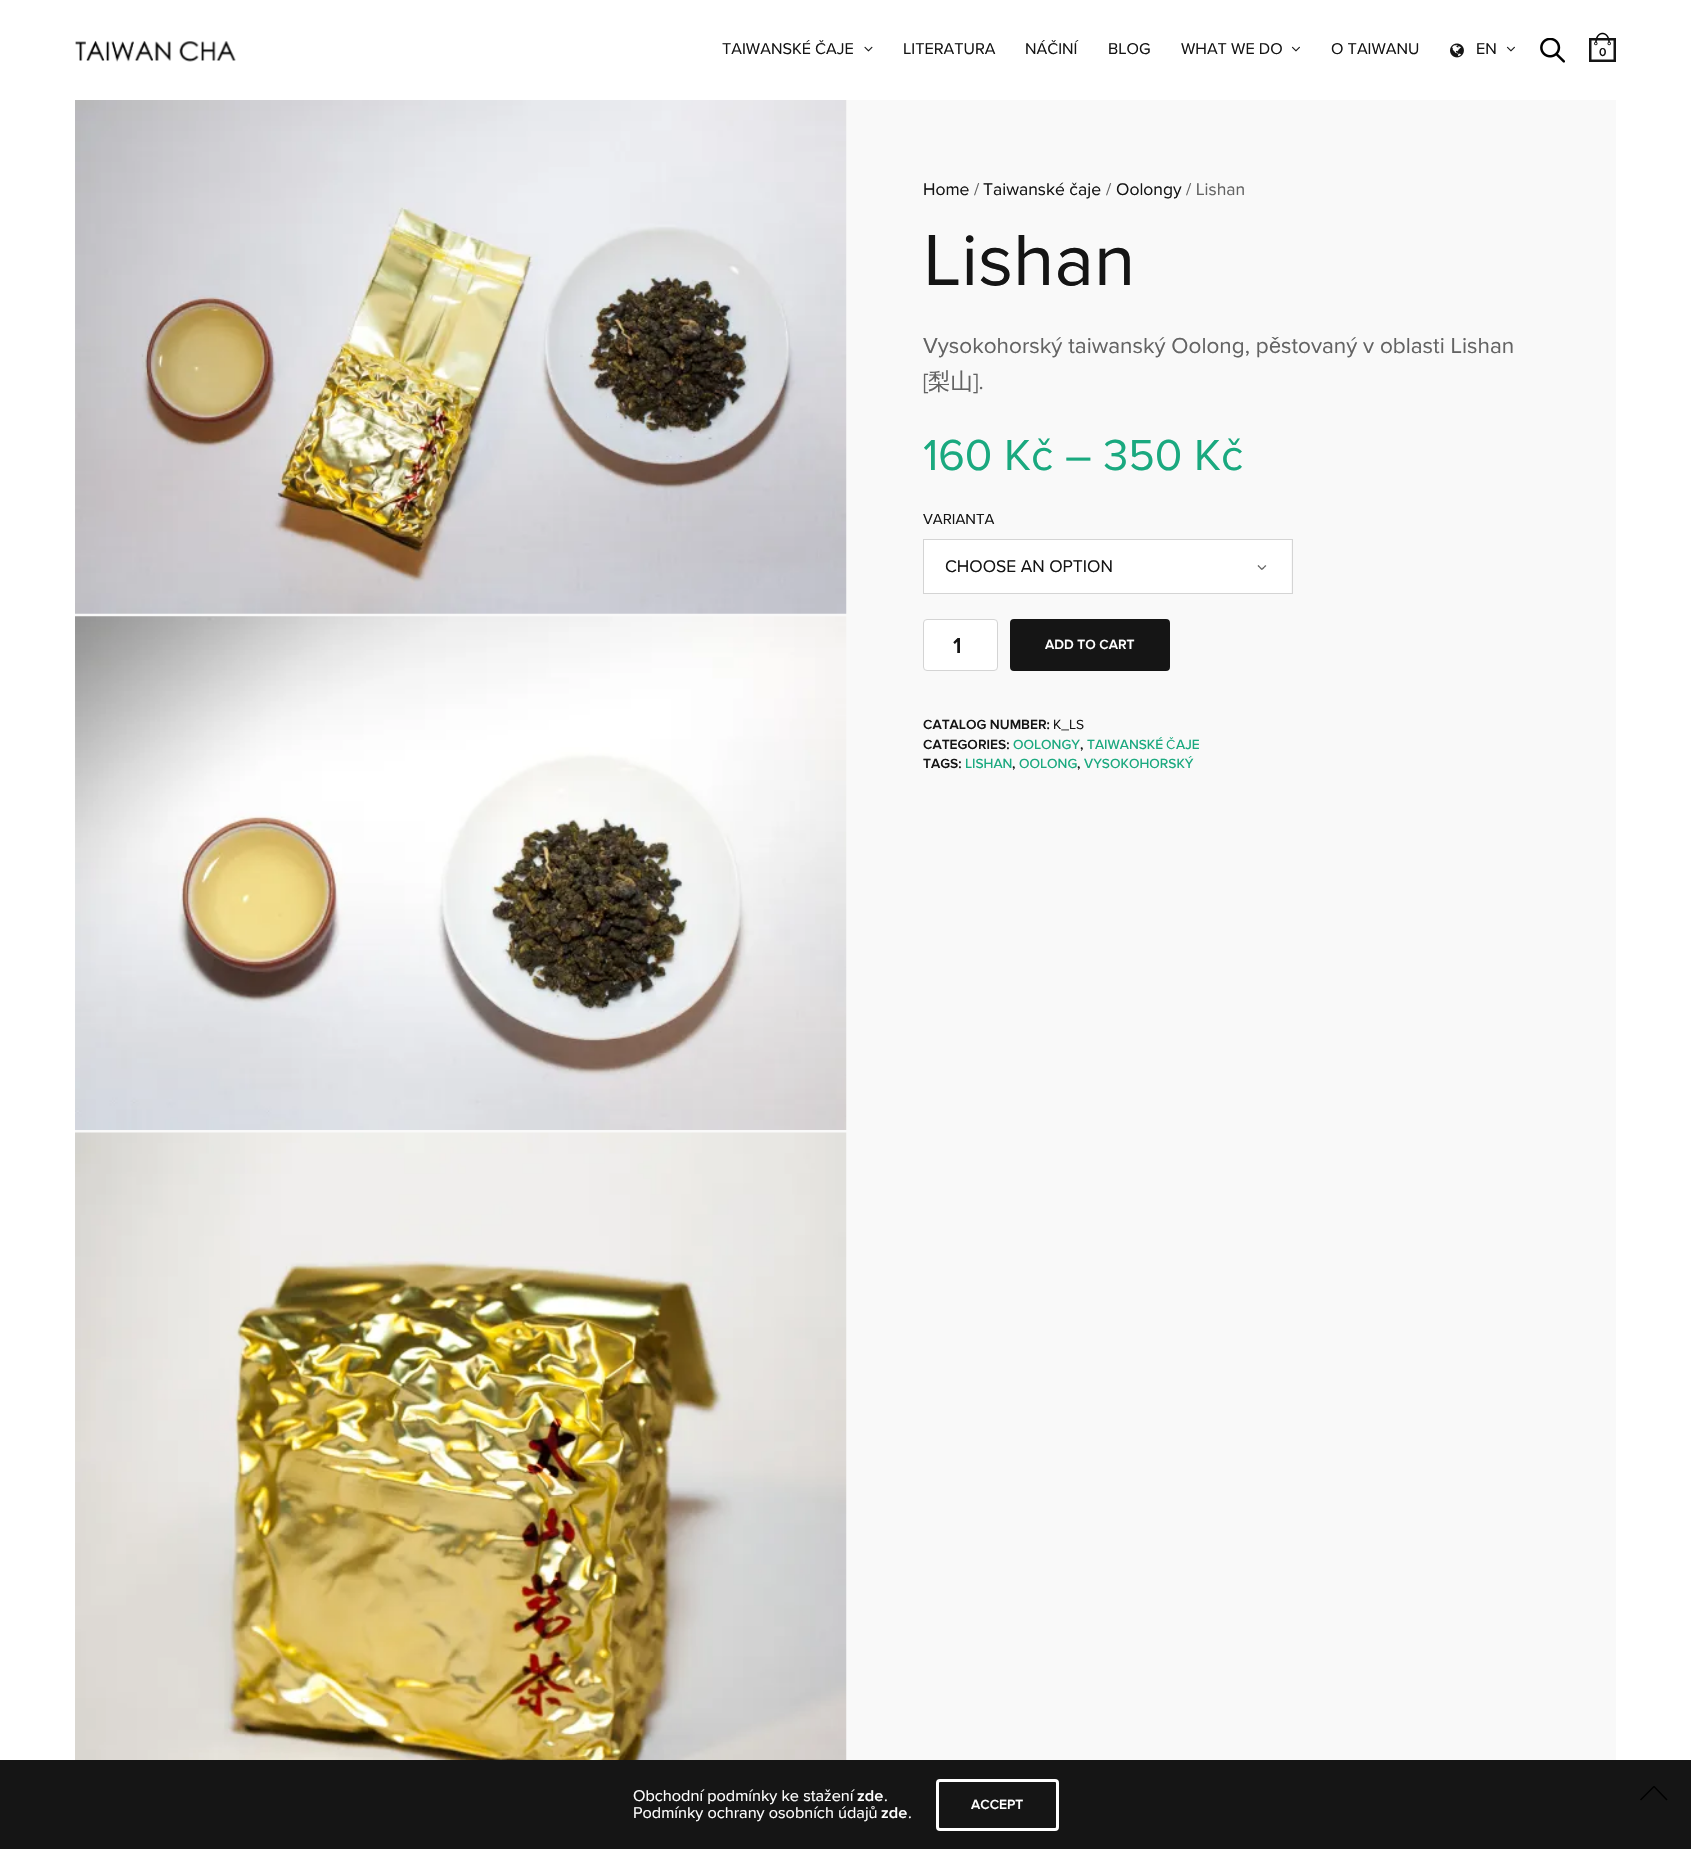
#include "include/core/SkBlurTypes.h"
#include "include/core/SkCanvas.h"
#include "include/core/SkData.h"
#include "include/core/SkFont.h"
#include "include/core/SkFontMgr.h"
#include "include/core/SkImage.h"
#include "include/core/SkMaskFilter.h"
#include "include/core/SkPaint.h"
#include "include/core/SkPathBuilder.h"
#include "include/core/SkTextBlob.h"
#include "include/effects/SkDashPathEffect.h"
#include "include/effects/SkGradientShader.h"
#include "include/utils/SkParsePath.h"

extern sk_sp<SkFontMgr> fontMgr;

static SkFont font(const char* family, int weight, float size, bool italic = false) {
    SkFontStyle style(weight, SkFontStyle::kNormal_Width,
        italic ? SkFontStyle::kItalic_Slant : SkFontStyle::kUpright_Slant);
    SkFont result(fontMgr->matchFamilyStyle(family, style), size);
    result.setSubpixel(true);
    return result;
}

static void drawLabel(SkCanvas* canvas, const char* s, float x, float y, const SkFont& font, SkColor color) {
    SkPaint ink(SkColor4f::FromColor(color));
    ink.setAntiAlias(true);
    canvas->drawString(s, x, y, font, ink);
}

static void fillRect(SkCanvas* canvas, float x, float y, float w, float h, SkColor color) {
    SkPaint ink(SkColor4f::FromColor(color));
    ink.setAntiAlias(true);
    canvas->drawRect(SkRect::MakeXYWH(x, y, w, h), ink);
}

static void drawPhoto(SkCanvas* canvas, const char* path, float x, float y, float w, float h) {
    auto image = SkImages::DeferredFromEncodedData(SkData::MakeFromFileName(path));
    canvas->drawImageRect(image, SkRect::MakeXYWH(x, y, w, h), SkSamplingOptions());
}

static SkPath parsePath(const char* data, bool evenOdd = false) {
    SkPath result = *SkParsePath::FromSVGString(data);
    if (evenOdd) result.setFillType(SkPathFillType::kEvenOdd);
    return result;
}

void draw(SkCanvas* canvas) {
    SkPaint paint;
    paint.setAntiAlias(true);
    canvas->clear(0xFFF9F9F9);
    fillRect(canvas, 0, 0, 1691, 100, 0xFFFFFFFF);
    drawPhoto(canvas, "assets/img1.png", 75, 41, 161, 21);
    SkFont font1 = font("Proxima Nova", 400, 16.25f);
    drawLabel(canvas, "TAIWANSKÉ ČAJE", 722, 54, font1, 0xFF151515);
    drawPhoto(canvas, "assets/img2.png", 864, 46, 9, 6);
    drawLabel(canvas, "LITERATURA", 903, 54, font1, 0xFF151515);
    drawLabel(canvas, "NÁČINÍ", 1025, 54, font1, 0xFF151515);
    drawLabel(canvas, "BLOG", 1108, 54, font1, 0xFF151515);
    drawLabel(canvas, "WHAT WE DO", 1181, 54, font1, 0xFF151515);
    drawPhoto(canvas, "assets/img3.png", 1291, 46, 9, 6);
    drawLabel(canvas, "O TAIWANU", 1331, 54, font1, 0xFF151515);
    drawPhoto(canvas, "assets/img4.png", 1450, 43, 14, 15);
    drawLabel(canvas, "EN", 1476, 54, font1, 0xFF151515);
    drawPhoto(canvas, "assets/img3.png", 1506, 46, 9, 6);
    drawPhoto(canvas, "assets/img5.png", 1540, 38, 25, 25);
    drawPhoto(canvas, "assets/img6.png", 1589, 32, 27, 30);
    SkFont font2 = font("Proxima Nova", 600, 12);
    drawLabel(canvas, "0", 1599, 56, font2, 0xFF151515);
    fillRect(canvas, 0, 100, 75, 1660, 0xFFFFFFFF);
    drawPhoto(canvas, "assets/img7.png", 75, 100, 772, 514);
    drawPhoto(canvas, "assets/img8.png", 75, 616, 772, 514);
    drawPhoto(canvas, "assets/img9.png", 75, 1132, 772, 628);
    SkFont font3 = font("Proxima Nova", 400, 17.5f);
    drawLabel(canvas, "Home", 923, 195, font3, 0xFF151515);
    drawLabel(canvas, "/", 974, 195, font3, 0xFF636363);
    drawLabel(canvas, "Taiwanské čaje", 983, 195, font3, 0xFF151515);
    drawLabel(canvas, "/", 1106, 195, font3, 0xFF636363);
    drawLabel(canvas, "Oolongy", 1116, 195, font3, 0xFF151515);
    drawLabel(canvas, "/ Lishan", 1186, 195, font3, 0xFF636363);
    SkFont font4 = font("Proxima Nova", 400, 75);
    drawLabel(canvas, "Lishan", 923, 285, font4, 0xFF151515);
    SkFont font5 = font("Proxima Nova", 400, 22.5f);
    drawLabel(canvas, "Vysokohorský taiwanský Oolong, p", 923, 353, font5, 0xFF636363);
    SkFont font6 = font("WenQuanYi Zen Hei", 500, 22.5f);
    drawLabel(canvas, "ě", 1269, 353, font6, 0xFF636363);
    drawLabel(canvas, "stovaný v oblasti Lishan", 1281, 353, font5, 0xFF636363);
    drawLabel(canvas, "[", 923, 389, font5, 0xFF636363);
    drawLabel(canvas, "梨山", 928, 389, font6, 0xFF636363);
    drawLabel(canvas, "].", 973, 389, font5, 0xFF636363);
    SkFont font7 = font("Proxima Nova", 400, 45);
    drawLabel(canvas, "160 Kč – 350 Kč", 923, 470, font7, 0xFF1AA97F);
    SkFont font8 = font("Proxima Nova", 400, 15);
    drawLabel(canvas, "VARIANTA", 923, 524, font8, 0xFF151515);
    paint.setStroke(true);
    paint.setStrokeWidth(1);
    paint.setColor(0xFFD4D4D4);
    canvas->drawRect(SkRect::MakeXYWH(923.5f, 539.5f, 369, 54), paint);
    fillRect(canvas, 924, 540, 367, 53, 0xFFFFFFFF);
    drawLabel(canvas, "CHOOSE AN OPTION", 945, 572, font3, 0xFF151515);
    drawPhoto(canvas, "assets/img10.png", 1257, 565, 10, 5);
    paint.setStroke(false);
    paint.setColor(0xFFFFFFFF);
    canvas->drawRoundRect(SkRect::MakeXYWH(923.5f, 619.5f, 74, 51), 3.5f, 3.5f, paint);
    paint.setStroke(true);
    paint.setColor(0xFFD4D4D4);
    canvas->drawRoundRect(SkRect::MakeXYWH(923.5f, 619.5f, 74, 51), 3.5f, 3.5f, paint);
    SkFont font9 = font("Proxima Nova", 600, 22.5f);
    drawLabel(canvas, "1", 953, 653, font9, 0xFF151515);
    paint.setStroke(false);
    paint.setColor(0xFF151515);
    canvas->drawRoundRect(SkRect::MakeXYWH(1011.5f, 620.5f, 157, 49), 2.5f, 2.5f, paint);
    paint.setStroke(true);
    paint.setStrokeWidth(3);
    canvas->drawRoundRect(SkRect::MakeXYWH(1011.5f, 620.5f, 157, 49), 2.5f, 2.5f, paint);
    SkFont font10 = font("Proxima Nova", 600, 13.75f);
    drawLabel(canvas, "ADD TO CART", 1045, 649, font10, 0xFFFFFFFF);
    drawLabel(canvas, "CATALOG NUMBER:", 923, 729, font10, 0xFF151515);
    SkFont font11 = font("Proxima Nova", 400, 13.75f);
    drawLabel(canvas, "K_LS", 1053, 729, font11, 0xFF151515);
    drawLabel(canvas, "CATEGORIES:", 923, 749, font10, 0xFF151515);
    SkFont font12 = font("Proxima Nova", 500, 13.75f);
    drawLabel(canvas, "OOLONGY", 1013, 749, font12, 0xFF1AA97F);
    drawLabel(canvas, ",", 1080, 749, font10, 0xFF151515);
    drawLabel(canvas, "TAIWANSKÉ", 1087, 749, font12, 0xFF1AA97F);
    drawLabel(canvas, "Č", 1166, 749, font11, 0xFF1AA97F);
    drawLabel(canvas, "AJE", 1176, 749, font12, 0xFF1AA97F);
    drawLabel(canvas, "TAGS:", 923, 768, font10, 0xFF151515);
    drawLabel(canvas, "LISHAN", 965, 768, font12, 0xFF1AA97F);
    drawLabel(canvas, ",", 1012, 768, font10, 0xFF151515);
    drawLabel(canvas, "OOLONG", 1019, 768, font12, 0xFF1AA97F);
    drawLabel(canvas, ",", 1077, 768, font10, 0xFF151515);
    drawLabel(canvas, "VYSOKOHORSKÝ", 1084, 768, font12, 0xFF1AA97F);
    fillRect(canvas, 1616, 100, 75, 1660, 0xFFFFFFFF);
    fillRect(canvas, 0, 1760, 1691, 89, 0xFF151515);
    drawLabel(canvas, "Obchodní podmínky ke stažení", 633, 1801, font1, 0xFFFFFFFF);
    SkFont font13 = font("Proxima Nova", 600, 16.25f);
    drawLabel(canvas, "zde", 857, 1801, font13, 0xFFFFFFFF);
    drawLabel(canvas, ".", 884, 1801, font1, 0xFFFFFFFF);
    drawLabel(canvas, "Podmínky ochrany osobních údajů", 633, 1818, font1, 0xFFFFFFFF);
    drawLabel(canvas, "zde", 881, 1818, font13, 0xFFFFFFFF);
    drawLabel(canvas, ".", 908, 1818, font1, 0xFFFFFFFF);
    paint.setColor(0xFFFFFFFF);
    canvas->drawRoundRect(SkRect::MakeXYWH(937.5f, 1780.5f, 120, 49), 2.5f, 2.5f, paint);
    drawLabel(canvas, "ACCEPT", 971, 1809, font10, 0xFFFFFFFF);
    paint.setStrokeWidth(1.6f);
    paint.setStrokeJoin(SkPaint::kBevel_Join);
    paint.setColor(0xFF000000);
    canvas->drawPath(parsePath("M1640.5 1800L1654 1786.5L1667 1800"), paint);
}
